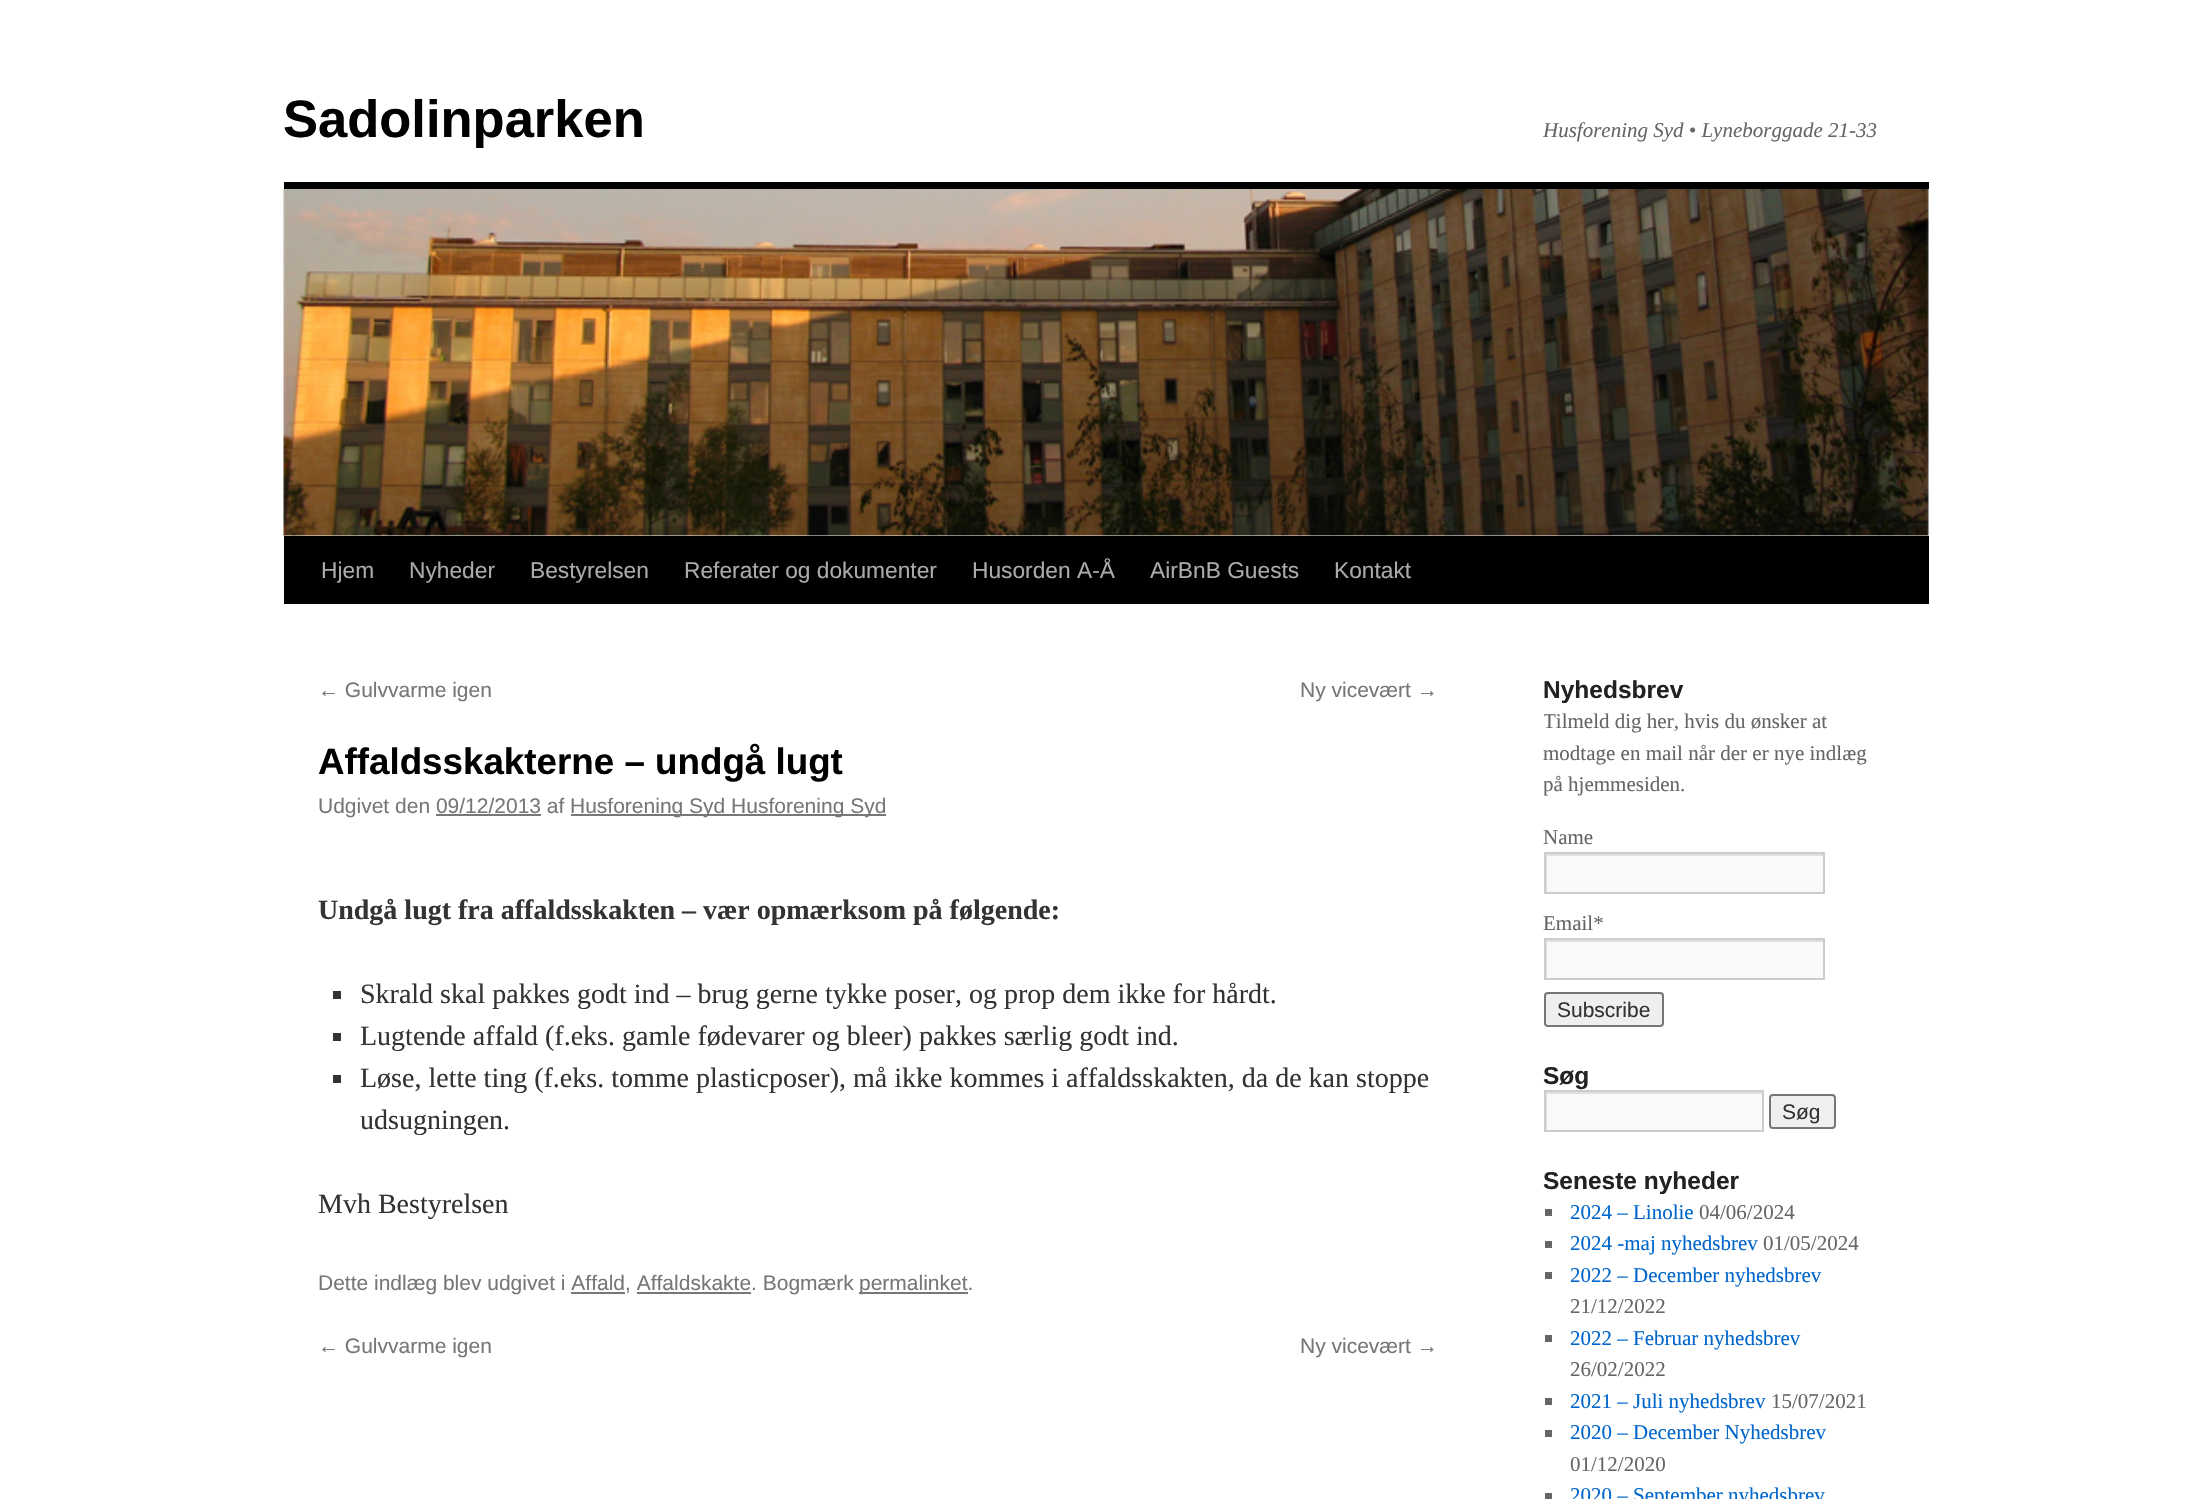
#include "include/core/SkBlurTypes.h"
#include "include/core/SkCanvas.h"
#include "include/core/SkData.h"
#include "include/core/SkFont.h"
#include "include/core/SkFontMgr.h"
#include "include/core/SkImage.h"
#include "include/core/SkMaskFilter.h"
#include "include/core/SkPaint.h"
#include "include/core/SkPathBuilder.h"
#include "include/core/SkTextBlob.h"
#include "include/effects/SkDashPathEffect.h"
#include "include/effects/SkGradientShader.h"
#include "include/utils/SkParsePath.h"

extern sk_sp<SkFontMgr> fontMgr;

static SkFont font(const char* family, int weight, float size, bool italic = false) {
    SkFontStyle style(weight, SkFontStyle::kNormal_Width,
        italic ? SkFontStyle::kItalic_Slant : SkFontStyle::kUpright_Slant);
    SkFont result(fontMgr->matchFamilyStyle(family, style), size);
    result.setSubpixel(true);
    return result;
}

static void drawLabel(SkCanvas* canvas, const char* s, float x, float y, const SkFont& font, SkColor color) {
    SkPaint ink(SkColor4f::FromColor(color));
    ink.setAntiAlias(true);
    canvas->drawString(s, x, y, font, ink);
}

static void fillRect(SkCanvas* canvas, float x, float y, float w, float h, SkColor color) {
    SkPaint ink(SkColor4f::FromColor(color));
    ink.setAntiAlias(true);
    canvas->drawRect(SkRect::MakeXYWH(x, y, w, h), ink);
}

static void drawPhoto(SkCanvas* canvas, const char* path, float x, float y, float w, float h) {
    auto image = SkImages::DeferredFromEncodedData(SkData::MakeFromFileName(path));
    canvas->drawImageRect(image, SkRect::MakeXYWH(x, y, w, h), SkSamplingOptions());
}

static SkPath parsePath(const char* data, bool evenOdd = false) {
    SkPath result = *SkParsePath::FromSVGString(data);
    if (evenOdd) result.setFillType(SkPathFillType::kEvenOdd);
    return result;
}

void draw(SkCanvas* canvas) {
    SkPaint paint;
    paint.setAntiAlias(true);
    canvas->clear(0xFFFFFFFF);
    SkFont font1 = font("Liberation Sans", 700, 52.5f);
    drawLabel(canvas, "Sadolinparken", 283, 137, font1, 0xFF000000);
    SkFont font2 = font("Liberation Serif", 400, 21, true);
    drawLabel(canvas, "Husforening Syd • Lyneborggade 21-33", 1543, 137, font2, 0xFF666666);
    fillRect(canvas, 284, 182, 1645, 7, 0xFF000000);
    fillRect(canvas, 284, 536, 1645, 68, 0xFF000000);
    drawPhoto(canvas, "assets/img1.png", 283, 189, 1646, 347);
    SkFont font3 = font("Liberation Sans", 400, 22.75f);
    drawLabel(canvas, "Hjem", 321, 578, font3, 0xFFAAAAAA);
    drawLabel(canvas, "Nyheder", 409, 578, font3, 0xFFAAAAAA);
    drawLabel(canvas, "Bestyrelsen", 530, 578, font3, 0xFFAAAAAA);
    drawLabel(canvas, "Referater og dokumenter", 684, 578, font3, 0xFFAAAAAA);
    drawLabel(canvas, "Husorden A-Å", 972, 578, font3, 0xFFAAAAAA);
    drawLabel(canvas, "AirBnB Guests", 1150, 578, font3, 0xFFAAAAAA);
    drawLabel(canvas, "Kontakt", 1334, 578, font3, 0xFFAAAAAA);
    SkFont font4 = font("Liberation Sans", 400, 21);
    drawLabel(canvas, "← Gulvvarme igen", 318, 697, font4, 0xFF777777);
    drawLabel(canvas, "Ny vicevært →", 1300, 697, font4, 0xFF777777);
    SkFont font5 = font("Liberation Sans", 700, 36.75f);
    drawLabel(canvas, "Affaldsskakterne – undgå lugt", 318, 774, font5, 0xFF000000);
    drawLabel(canvas, "Udgivet den 09/12/2013 af", 318, 813, font4, 0xFF777777);
    fillRect(canvas, 571, 814, 315, 2, 0xFF777777);
    drawLabel(canvas, "Husforening Syd Husforening Syd", 570, 813, font4, 0xFF777777);
    fillRect(canvas, 436, 814, 105, 2, 0xFF777777);
    SkFont font6 = font("Liberation Serif", 700, 28);
    drawLabel(canvas, "Undgå lugt fra affaldsskakten – vær opmærksom på følgende:", 318, 919, font6, 0xFF333333);
    fillRect(canvas, 333, 991, 8, 8, 0xFF333333);
    SkFont font7 = font("Liberation Serif", 400, 28);
    drawLabel(canvas, "Skrald skal pakkes godt ind – brug gerne tykke poser, og prop dem ikke for hårdt.", 360, 1003, font7, 0xFF333333);
    fillRect(canvas, 333, 1033, 8, 8, 0xFF333333);
    drawLabel(canvas, "Lugtende affald (f.eks. gamle fødevarer og bleer) pakkes særlig godt ind.", 360, 1045, font7, 0xFF333333);
    fillRect(canvas, 333, 1075, 8, 8, 0xFF333333);
    drawLabel(canvas, "Løse, lette ting (f.eks. tomme plasticposer), må ikke kommes i affaldsskakten, da de kan stoppe", 360, 1087, font7, 0xFF333333);
    drawLabel(canvas, "udsugningen.", 360, 1129, font7, 0xFF333333);
    drawLabel(canvas, "Mvh Bestyrelsen", 318, 1213, font7, 0xFF333333);
    drawLabel(canvas, "Dette indlæg blev udgivet i Affald, Affaldskakte. Bogmærk", 318, 1290, font4, 0xFF777777);
    fillRect(canvas, 859, 1292, 109, 2, 0xFF777777);
    drawLabel(canvas, "permalinket.", 859, 1290, font4, 0xFF777777);
    fillRect(canvas, 571, 1292, 54, 2, 0xFF777777);
    fillRect(canvas, 637, 1292, 114, 2, 0xFF777777);
    drawLabel(canvas, "← Gulvvarme igen", 318, 1353, font4, 0xFF777777);
    drawLabel(canvas, "Ny vicevært →", 1300, 1353, font4, 0xFF777777);
    SkFont font8 = font("Liberation Sans", 700, 24.5f);
    drawLabel(canvas, "Nyhedsbrev", 1543, 698, font8, 0xFF222222);
    canvas->save();
    canvas->clipRect(SkRect::MakeXYWH(1544, 674, 385, 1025));
    SkFont font9 = font("Liberation Serif", 400, 21);
    drawLabel(canvas, "Tilmeld dig her, hvis du ønsker at", 1543, 728, font9, 0xFF666666);
    canvas->restore();
    drawLabel(canvas, "modtage en mail når der er nye indlæg", 1543, 760, font9, 0xFF666666);
    canvas->save();
    canvas->clipRect(SkRect::MakeXYWH(1544, 674, 385, 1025));
    drawLabel(canvas, "på hjemmesiden.", 1543, 791, font9, 0xFF666666);
    canvas->restore();
    drawLabel(canvas, "Name", 1543, 844, font9, 0xFF666666);
    fillRect(canvas, 1547, 856, 276, 36, 0xFFF9F9F9);
    canvas->save();
    canvas->clipRect(SkRect::MakeXYWH(1545, 854, 279, 39));
    paint.setColor(0xFFE0E0E0);
    canvas->drawPath(parsePath("M1372 681H1997V1066H1372ZM1547 856H1825V894H1547Z", true), paint);
    canvas->restore();
    paint.setStroke(true);
    paint.setStrokeWidth(2);
    paint.setColor(0xFFCCCCCC);
    canvas->drawRect(SkRect::MakeXYWH(1545, 853, 279, 40), paint);
    drawLabel(canvas, "Email*", 1543, 930, font9, 0xFF666666);
    fillRect(canvas, 1547, 942, 276, 36, 0xFFF9F9F9);
    canvas->save();
    canvas->clipRect(SkRect::MakeXYWH(1545, 940, 279, 38));
    paint.setStroke(false);
    paint.setColor(0xFFE0E0E0);
    canvas->drawPath(parsePath("M1372 766H1997V1152H1372ZM1547 942H1825V980H1547Z", true), paint);
    canvas->restore();
    paint.setStroke(true);
    paint.setColor(0xFFCCCCCC);
    canvas->drawRect(SkRect::MakeXYWH(1545, 939, 279, 40), paint);
    paint.setStroke(false);
    paint.setColor(0xFFEFEFEF);
    canvas->drawRoundRect(SkRect::MakeXYWH(1545, 993, 118, 33), 3, 3, paint);
    paint.setStroke(true);
    paint.setColor(0xFF767676);
    canvas->drawRoundRect(SkRect::MakeXYWH(1545, 993, 118, 33), 3, 3, paint);
    drawLabel(canvas, "Subscribe", 1557, 1017, font4, 0xFF333333);
    drawLabel(canvas, "Søg", 1543, 1084, font8, 0xFF222222);
    fillRect(canvas, 1547, 1094, 215, 36, 0xFFF9F9F9);
    canvas->save();
    canvas->clipRect(SkRect::MakeXYWH(1545, 1092, 217, 39));
    paint.setStroke(false);
    paint.setColor(0xFFE0E0E0);
    canvas->drawPath(parsePath("M1372 919H1936V1304H1372ZM1547 1094H1764V1132H1547Z", true), paint);
    canvas->restore();
    paint.setStroke(true);
    paint.setColor(0xFFCCCCCC);
    canvas->drawRect(SkRect::MakeXYWH(1545, 1091, 218, 40), paint);
    paint.setStroke(false);
    paint.setColor(0xFFEFEFEF);
    canvas->drawRoundRect(SkRect::MakeXYWH(1770, 1095, 65, 33), 3, 3, paint);
    paint.setStroke(true);
    paint.setColor(0xFF767676);
    canvas->drawRoundRect(SkRect::MakeXYWH(1770, 1095, 65, 33), 3, 3, paint);
    drawLabel(canvas, "Søg", 1782, 1119, font4, 0xFF333333);
    drawLabel(canvas, "Seneste nyheder", 1543, 1189, font8, 0xFF222222);
    fillRect(canvas, 1545, 1209, 7, 7, 0xFF666666);
    drawLabel(canvas, "2024 – Linolie", 1570, 1219, font9, 0xFF0066CC);
    drawLabel(canvas, "04/06/2024", 1699, 1219, font9, 0xFF666666);
    fillRect(canvas, 1545, 1241, 7, 7, 0xFF666666);
    drawLabel(canvas, "2024 -maj nyhedsbrev", 1570, 1250, font9, 0xFF0066CC);
    drawLabel(canvas, "01/05/2024", 1763, 1250, font9, 0xFF666666);
    fillRect(canvas, 1545, 1272, 7, 7, 0xFF666666);
    drawLabel(canvas, "2022 – December nyhedsbrev", 1570, 1282, font9, 0xFF0066CC);
    drawLabel(canvas, "21/12/2022", 1570, 1313, font9, 0xFF666666);
    fillRect(canvas, 1545, 1335, 7, 7, 0xFF666666);
    drawLabel(canvas, "2022 – Februar nyhedsbrev", 1570, 1345, font9, 0xFF0066CC);
    drawLabel(canvas, "26/02/2022", 1570, 1376, font9, 0xFF666666);
    fillRect(canvas, 1545, 1398, 7, 7, 0xFF666666);
    drawLabel(canvas, "2021 – Juli nyhedsbrev", 1570, 1408, font9, 0xFF0066CC);
    drawLabel(canvas, "15/07/2021", 1771, 1408, font9, 0xFF666666);
    fillRect(canvas, 1545, 1430, 7, 7, 0xFF666666);
    drawLabel(canvas, "2020 – December Nyhedsbrev", 1570, 1439, font9, 0xFF0066CC);
    drawLabel(canvas, "01/12/2020", 1570, 1471, font9, 0xFF666666);
    fillRect(canvas, 1545, 1493, 7, 6, 0xFF666666);
    drawLabel(canvas, "2020 – September nyhedsbrev", 1570, 1502, font9, 0xFF0066CC);
}
